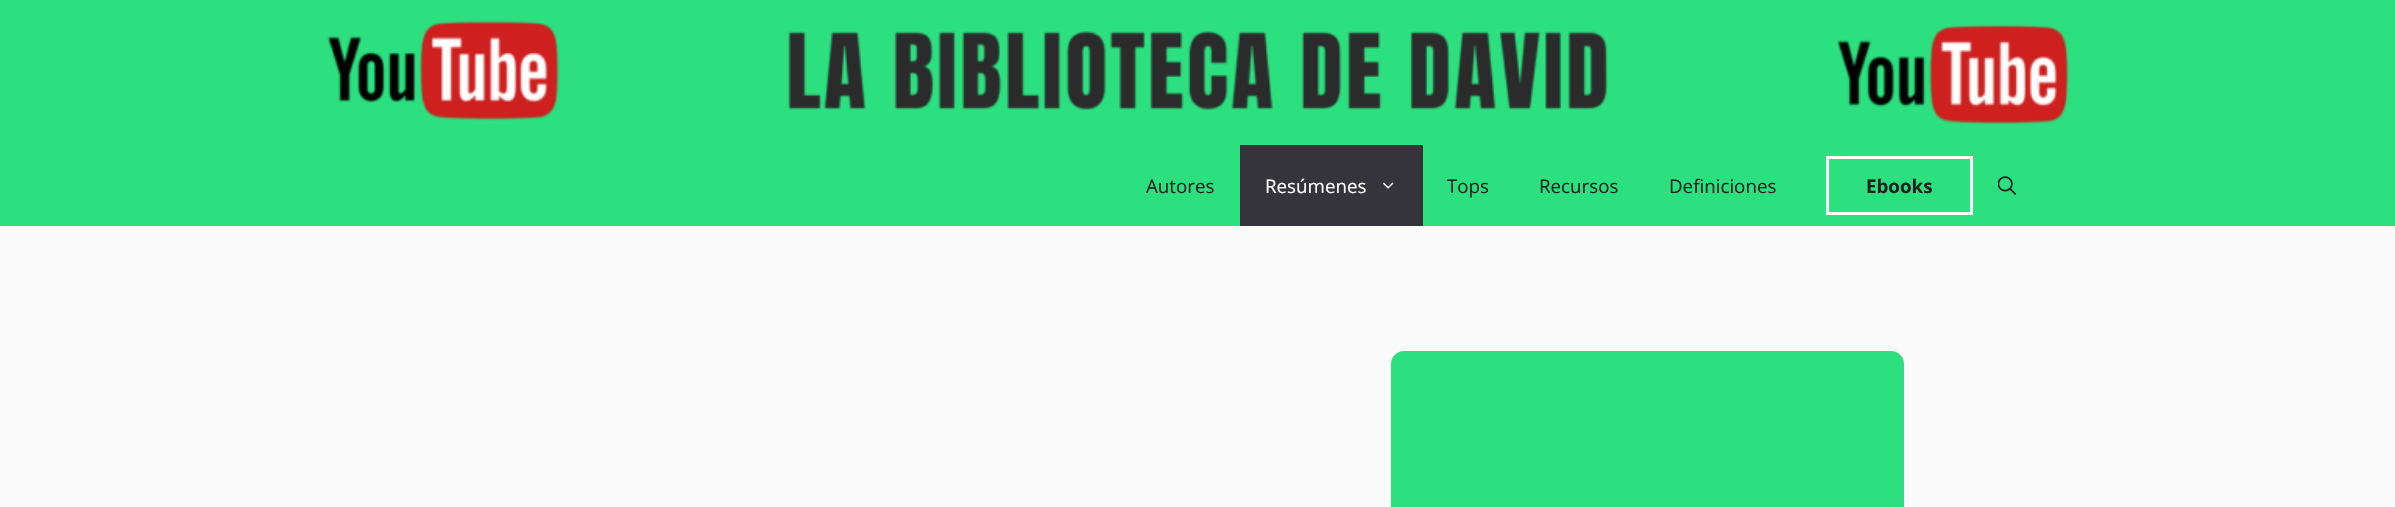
#include "include/core/SkBlurTypes.h"
#include "include/core/SkCanvas.h"
#include "include/core/SkData.h"
#include "include/core/SkFont.h"
#include "include/core/SkFontMgr.h"
#include "include/core/SkImage.h"
#include "include/core/SkMaskFilter.h"
#include "include/core/SkPaint.h"
#include "include/core/SkPathBuilder.h"
#include "include/core/SkTextBlob.h"
#include "include/effects/SkDashPathEffect.h"
#include "include/effects/SkGradientShader.h"
#include "include/utils/SkParsePath.h"

extern sk_sp<SkFontMgr> fontMgr;

static SkFont font(const char* family, int weight, float size, bool italic = false) {
    SkFontStyle style(weight, SkFontStyle::kNormal_Width,
        italic ? SkFontStyle::kItalic_Slant : SkFontStyle::kUpright_Slant);
    SkFont result(fontMgr->matchFamilyStyle(family, style), size);
    result.setSubpixel(true);
    return result;
}

static void drawLabel(SkCanvas* canvas, const char* s, float x, float y, const SkFont& font, SkColor color) {
    SkPaint ink(SkColor4f::FromColor(color));
    ink.setAntiAlias(true);
    canvas->drawString(s, x, y, font, ink);
}

static void fillRect(SkCanvas* canvas, float x, float y, float w, float h, SkColor color) {
    SkPaint ink(SkColor4f::FromColor(color));
    ink.setAntiAlias(true);
    canvas->drawRect(SkRect::MakeXYWH(x, y, w, h), ink);
}

static void fillRRect(SkCanvas* canvas, float x, float y, float w, float h, float radius, SkColor color) {
    SkPaint ink(SkColor4f::FromColor(color));
    ink.setAntiAlias(true);
    canvas->drawRoundRect(SkRect::MakeXYWH(x, y, w, h), radius, radius, ink);
}

static void drawPhoto(SkCanvas* canvas, const char* path, float x, float y, float w, float h) {
    auto image = SkImages::DeferredFromEncodedData(SkData::MakeFromFileName(path));
    canvas->drawImageRect(image, SkRect::MakeXYWH(x, y, w, h), SkSamplingOptions());
}

void draw(SkCanvas* canvas) {
    SkPaint paint;
    paint.setAntiAlias(true);
    canvas->clear(0xFFFAFAFA);
    drawPhoto(canvas, "assets/img1.png", 0, 0, 2395, 145);
    fillRect(canvas, 0, 145, 2395, 81, 0xFF2CE080);
    SkFont font1 = font("Open Sans", 400, 18.75f);
    drawLabel(canvas, "Autores", 1146, 193, font1, 0xFF212121);
    fillRect(canvas, 1240, 145, 183, 81, 0xFF35343A);
    drawLabel(canvas, "Resúmenes", 1265, 193, font1, 0xFFFFFFFF);
    drawPhoto(canvas, "assets/img2.png", 1383, 182, 11, 7);
    drawLabel(canvas, "Tops", 1447, 193, font1, 0xFF212121);
    drawLabel(canvas, "Recursos", 1539, 193, font1, 0xFF212121);
    drawLabel(canvas, "Definiciones", 1669, 193, font1, 0xFF212121);
    paint.setStroke(true);
    paint.setStrokeWidth(3);
    paint.setColor(0xFFFFFFFF);
    canvas->drawRect(SkRect::MakeXYWH(1827.5f, 157.5f, 144, 56), paint);
    SkFont font2 = font("Open Sans", 700, 18.75f);
    drawLabel(canvas, "Ebooks", 1866, 193, font2, 0xFF212121);
    drawPhoto(canvas, "assets/img3.png", 1998, 176, 18, 19);
    fillRRect(canvas, 1391, 351, 513, 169, 13, 0xFF2CE080);
}
